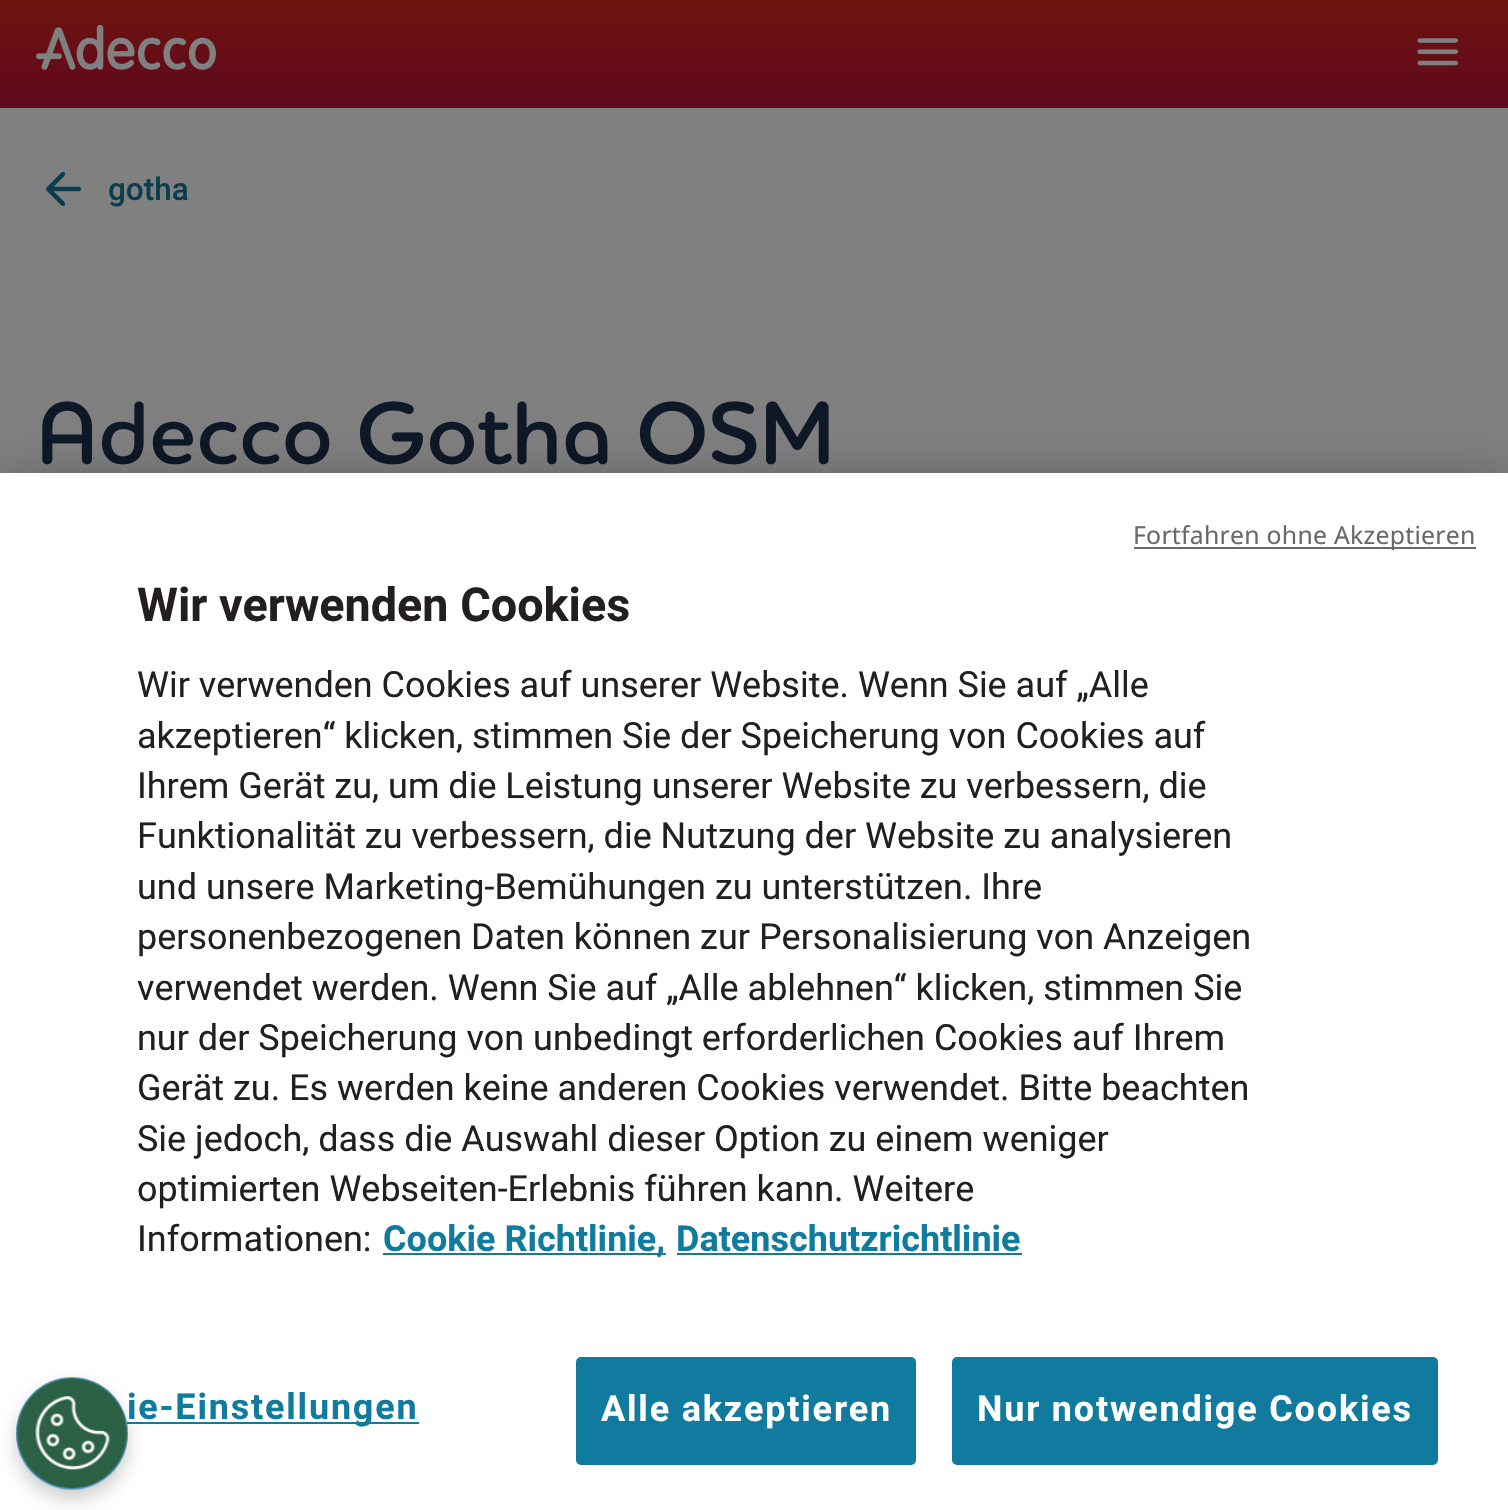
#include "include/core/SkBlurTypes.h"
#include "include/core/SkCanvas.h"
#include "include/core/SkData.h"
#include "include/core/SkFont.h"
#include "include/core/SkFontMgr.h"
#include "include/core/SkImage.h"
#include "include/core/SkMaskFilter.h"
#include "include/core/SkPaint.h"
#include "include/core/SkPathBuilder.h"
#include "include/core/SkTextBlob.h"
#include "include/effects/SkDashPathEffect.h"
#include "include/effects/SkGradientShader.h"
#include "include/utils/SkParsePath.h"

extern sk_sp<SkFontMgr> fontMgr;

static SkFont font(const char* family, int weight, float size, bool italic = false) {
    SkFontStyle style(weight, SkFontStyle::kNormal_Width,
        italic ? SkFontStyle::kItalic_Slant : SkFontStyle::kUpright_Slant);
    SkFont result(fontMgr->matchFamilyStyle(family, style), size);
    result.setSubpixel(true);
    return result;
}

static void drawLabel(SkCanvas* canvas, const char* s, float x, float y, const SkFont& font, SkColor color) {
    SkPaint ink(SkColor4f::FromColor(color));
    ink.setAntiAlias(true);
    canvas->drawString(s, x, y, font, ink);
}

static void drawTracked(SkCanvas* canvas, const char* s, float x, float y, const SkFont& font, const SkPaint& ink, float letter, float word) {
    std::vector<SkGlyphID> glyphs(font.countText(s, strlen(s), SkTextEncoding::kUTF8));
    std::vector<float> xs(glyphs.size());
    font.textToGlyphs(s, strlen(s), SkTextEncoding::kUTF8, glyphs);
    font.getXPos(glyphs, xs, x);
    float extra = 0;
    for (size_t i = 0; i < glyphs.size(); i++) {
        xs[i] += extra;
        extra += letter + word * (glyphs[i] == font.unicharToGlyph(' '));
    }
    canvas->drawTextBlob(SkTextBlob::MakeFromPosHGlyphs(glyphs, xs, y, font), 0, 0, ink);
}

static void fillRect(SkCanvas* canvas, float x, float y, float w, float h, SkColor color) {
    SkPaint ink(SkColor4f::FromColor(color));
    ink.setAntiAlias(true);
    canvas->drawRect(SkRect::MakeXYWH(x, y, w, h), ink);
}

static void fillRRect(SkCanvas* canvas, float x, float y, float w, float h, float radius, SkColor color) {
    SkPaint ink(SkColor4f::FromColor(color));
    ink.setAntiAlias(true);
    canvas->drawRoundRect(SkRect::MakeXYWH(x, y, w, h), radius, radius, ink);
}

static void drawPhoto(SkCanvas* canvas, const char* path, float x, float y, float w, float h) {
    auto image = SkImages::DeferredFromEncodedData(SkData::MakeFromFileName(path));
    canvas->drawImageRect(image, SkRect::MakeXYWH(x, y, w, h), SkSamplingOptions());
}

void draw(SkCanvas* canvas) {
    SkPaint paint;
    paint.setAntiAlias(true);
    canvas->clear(0xFF808080);
    {
        const SkColor colors[] = {0xFF6D150E, 0xFF60071F};
        const float stops[] = {0, 1};
        const SkPoint ends[] = {{755, 0}, {755, 108}};
        paint.setShader(SkGradientShader::MakeLinear(ends, colors, stops, 2, SkTileMode::kClamp));
        paint.setAlpha(255);
    }
    canvas->drawRect(SkRect::MakeXYWH(0, 0, 1508, 108), paint);
    drawPhoto(canvas, "assets/img1.png", 36, 25, 180, 45);
    drawPhoto(canvas, "assets/img2.png", 1417, 38, 41, 28);
    drawPhoto(canvas, "assets/img3.png", 46, 172, 35, 34);
    SkFont font1 = font("Roboto", 500, 31.5f);
    drawLabel(canvas, "gotha", 108, 200, font1, 0xFF083E4F);
    drawPhoto(canvas, "assets/img4.png", 42, 401, 787, 64);
    paint.setShader(nullptr);
    paint.setColor(0x33000000);
    paint.setMaskFilter(SkMaskFilter::MakeBlur(kNormal_SkBlurStyle, 20));
    canvas->drawRect(SkRect::MakeXYWH(0, 473, 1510, 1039), paint);
    paint.setMaskFilter(nullptr);
    fillRect(canvas, 0, 473, 1508, 1037, 0xFFFFFFFF);
    fillRect(canvas, 126, 1422, 293, 2, 0xFF107B9E);
    paint.setMaskFilter(SkMaskFilter::MakeBlur(kNormal_SkBlurStyle, 9));
    canvas->drawRoundRect(SkRect::MakeXYWH(16, 1386, 112, 113), 56, 56, paint);
    paint.setMaskFilter(nullptr);
    fillRRect(canvas, 16, 1377, 112, 113, 56, 0xFF6AAAE4);
    drawPhoto(canvas, "assets/img5.png", 16, 1378, 112, 111);
    fillRect(canvas, 1134, 547, 342, 2, 0xFF696969);
    SkFont font2 = font("Noto Sans", 400, 24.8f);
    paint.setColor(0xFF696969);
    drawTracked(canvas, "Fortfahren ohne Akzeptieren", 1133, 544, font2, paint, 0.25f, 0);
    SkFont font3 = font("Roboto", 700, 46.75f);
    drawLabel(canvas, "Wir verwenden Cookies", 137, 621, font3, 0xFF231F20);
    SkFont font4 = font("Roboto", 400, 36);
    drawLabel(canvas, "Wir verwenden Cookies auf unserer Website. Wenn Sie auf „Alle", 137, 697, font4, 0xFF231F20);
    drawLabel(canvas, "akzeptieren“ klicken, stimmen Sie der Speicherung von Cookies auf", 137, 748, font4, 0xFF231F20);
    drawLabel(canvas, "Ihrem Gerät zu, um die Leistung unserer Website zu verbessern, die", 137, 798, font4, 0xFF231F20);
    drawLabel(canvas, "Funktionalität zu verbessern, die Nutzung der Website zu analysieren", 137, 848, font4, 0xFF231F20);
    drawLabel(canvas, "und unsere Marketing-Bemühungen zu unterstützen. Ihre", 137, 899, font4, 0xFF231F20);
    drawLabel(canvas, "personenbezogenen Daten können zur Personalisierung von Anzeigen", 137, 949, font4, 0xFF231F20);
    drawLabel(canvas, "verwendet werden. Wenn Sie auf „Alle ablehnen“ klicken, stimmen Sie", 137, 1000, font4, 0xFF231F20);
    drawLabel(canvas, "nur der Speicherung von unbedingt erforderlichen Cookies auf Ihrem", 137, 1050, font4, 0xFF231F20);
    drawLabel(canvas, "Gerät zu. Es werden keine anderen Cookies verwendet. Bitte beachten", 137, 1100, font4, 0xFF231F20);
    drawLabel(canvas, "Sie jedoch, dass die Auswahl dieser Option zu einem weniger", 137, 1151, font4, 0xFF231F20);
    drawLabel(canvas, "optimierten Webseiten-Erlebnis führen kann. Weitere", 137, 1201, font4, 0xFF231F20);
    drawLabel(canvas, "Informationen:", 137, 1251, font4, 0xFF231F20);
    fillRect(canvas, 383, 1253, 283, 2, 0xFF107B9E);
    SkFont font5 = font("Roboto", 700, 36);
    drawLabel(canvas, "Cookie Richtlinie,", 383, 1251, font5, 0xFF107B9E);
    drawLabel(canvas, "Datenschutzrichtlinie", 676, 1251, font5, 0xFF107B9E);
    fillRect(canvas, 677, 1253, 345, 2, 0xFF107B9E);
    paint.setColor(0xFF107B9E);
    drawTracked(canvas, "ie-Einstellungen", 127, 1419, font5, paint, 1.8f, 0);
    canvas->drawRoundRect(SkRect::MakeXYWH(577, 1358, 338, 106), 4, 4, paint);
    paint.setStroke(true);
    paint.setStrokeWidth(2);
    canvas->drawRoundRect(SkRect::MakeXYWH(577, 1358, 338, 106), 4, 4, paint);
    paint.setStroke(false);
    paint.setColor(0xFFFFFFFF);
    drawTracked(canvas, "Alle akzeptieren", 601, 1421, font5, paint, 1.8f, 0);
    paint.setColor(0xFF107B9E);
    canvas->drawRoundRect(SkRect::MakeXYWH(953, 1358, 484, 106), 4, 4, paint);
    paint.setStroke(true);
    canvas->drawRoundRect(SkRect::MakeXYWH(953, 1358, 484, 106), 4, 4, paint);
    paint.setStroke(false);
    paint.setColor(0xFFFFFFFF);
    drawTracked(canvas, "Nur notwendige Cookies", 977, 1421, font5, paint, 1.8f, 0);
}
